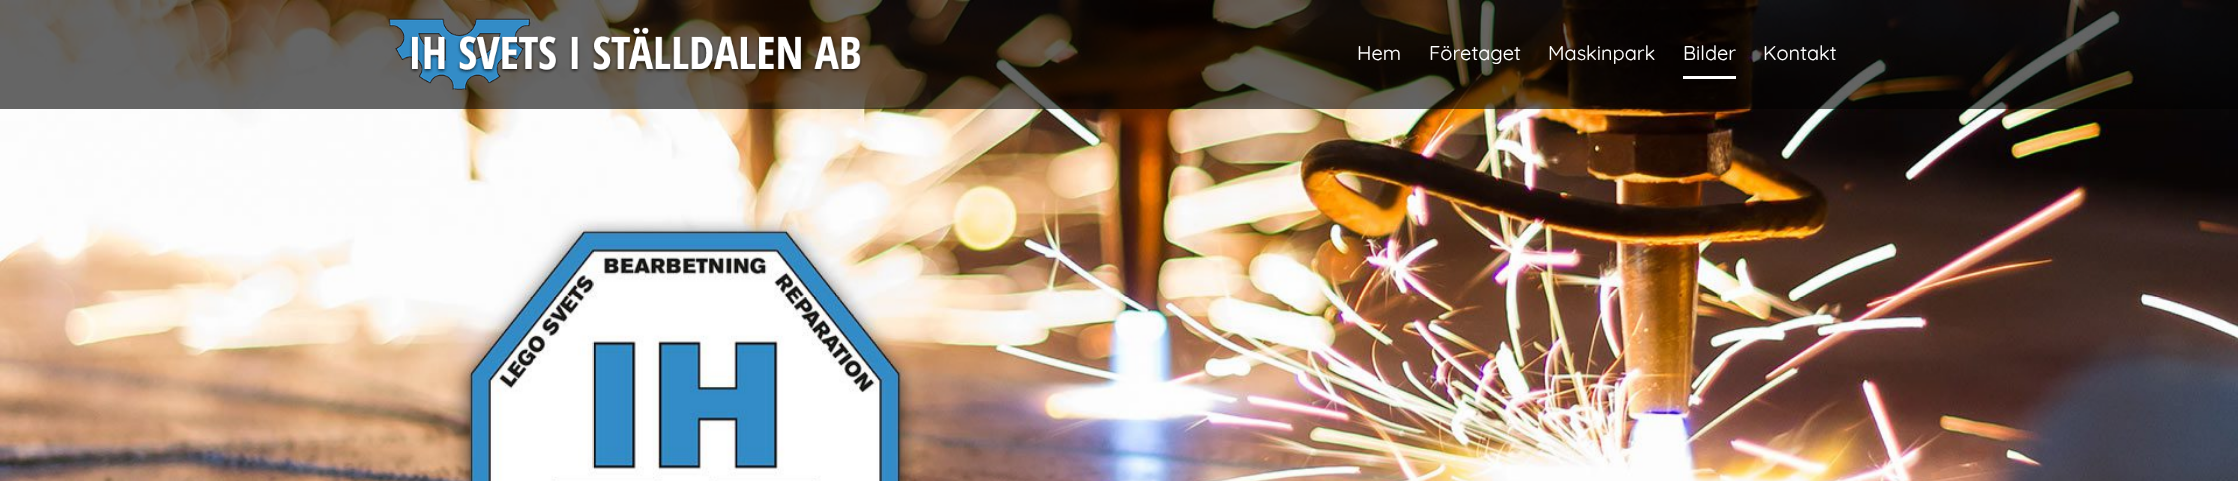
#include "include/core/SkBlurTypes.h"
#include "include/core/SkCanvas.h"
#include "include/core/SkData.h"
#include "include/core/SkFont.h"
#include "include/core/SkFontMgr.h"
#include "include/core/SkImage.h"
#include "include/core/SkMaskFilter.h"
#include "include/core/SkPaint.h"
#include "include/core/SkPathBuilder.h"
#include "include/core/SkTextBlob.h"
#include "include/effects/SkDashPathEffect.h"
#include "include/effects/SkGradientShader.h"
#include "include/utils/SkParsePath.h"

extern sk_sp<SkFontMgr> fontMgr;

static SkFont font(const char* family, int weight, float size, bool italic = false) {
    SkFontStyle style(weight, SkFontStyle::kNormal_Width,
        italic ? SkFontStyle::kItalic_Slant : SkFontStyle::kUpright_Slant);
    SkFont result(fontMgr->matchFamilyStyle(family, style), size);
    result.setSubpixel(true);
    return result;
}

static void drawLabel(SkCanvas* canvas, const char* s, float x, float y, const SkFont& font, SkColor color) {
    SkPaint ink(SkColor4f::FromColor(color));
    ink.setAntiAlias(true);
    canvas->drawString(s, x, y, font, ink);
}

static void fillRect(SkCanvas* canvas, float x, float y, float w, float h, SkColor color) {
    SkPaint ink(SkColor4f::FromColor(color));
    ink.setAntiAlias(true);
    canvas->drawRect(SkRect::MakeXYWH(x, y, w, h), ink);
}

static void drawPhoto(SkCanvas* canvas, const char* path, float x, float y, float w, float h) {
    auto image = SkImages::DeferredFromEncodedData(SkData::MakeFromFileName(path));
    canvas->drawImageRect(image, SkRect::MakeXYWH(x, y, w, h), SkSamplingOptions());
}

void draw(SkCanvas* canvas) {
    SkPaint paint;
    paint.setAntiAlias(true);
    canvas->clear(0xFFFFFFFF);
    drawPhoto(canvas, "assets/img1.png", 0, 0, 2238, 481);
    fillRect(canvas, 0, 0, 2238, 109, 0x99000000);
    drawPhoto(canvas, "assets/img2.png", 388, 18, 474, 72);
    SkFont font1 = font("Quicksand", 400, 20);
    drawLabel(canvas, "Hem", 1357, 60, font1, 0xFFFFFFFF);
    drawLabel(canvas, "Företaget", 1429, 60, font1, 0xFFFFFFFF);
    drawLabel(canvas, "Maskinpark", 1548, 60, font1, 0xFFFFFFFF);
    drawLabel(canvas, "Bilder", 1683, 60, font1, 0xFFFFFFFF);
    fillRect(canvas, 1683, 76, 53, 3, 0xFFFFFFFF);
    drawLabel(canvas, "Kontakt", 1763, 60, font1, 0xFFFFFFFF);
}
